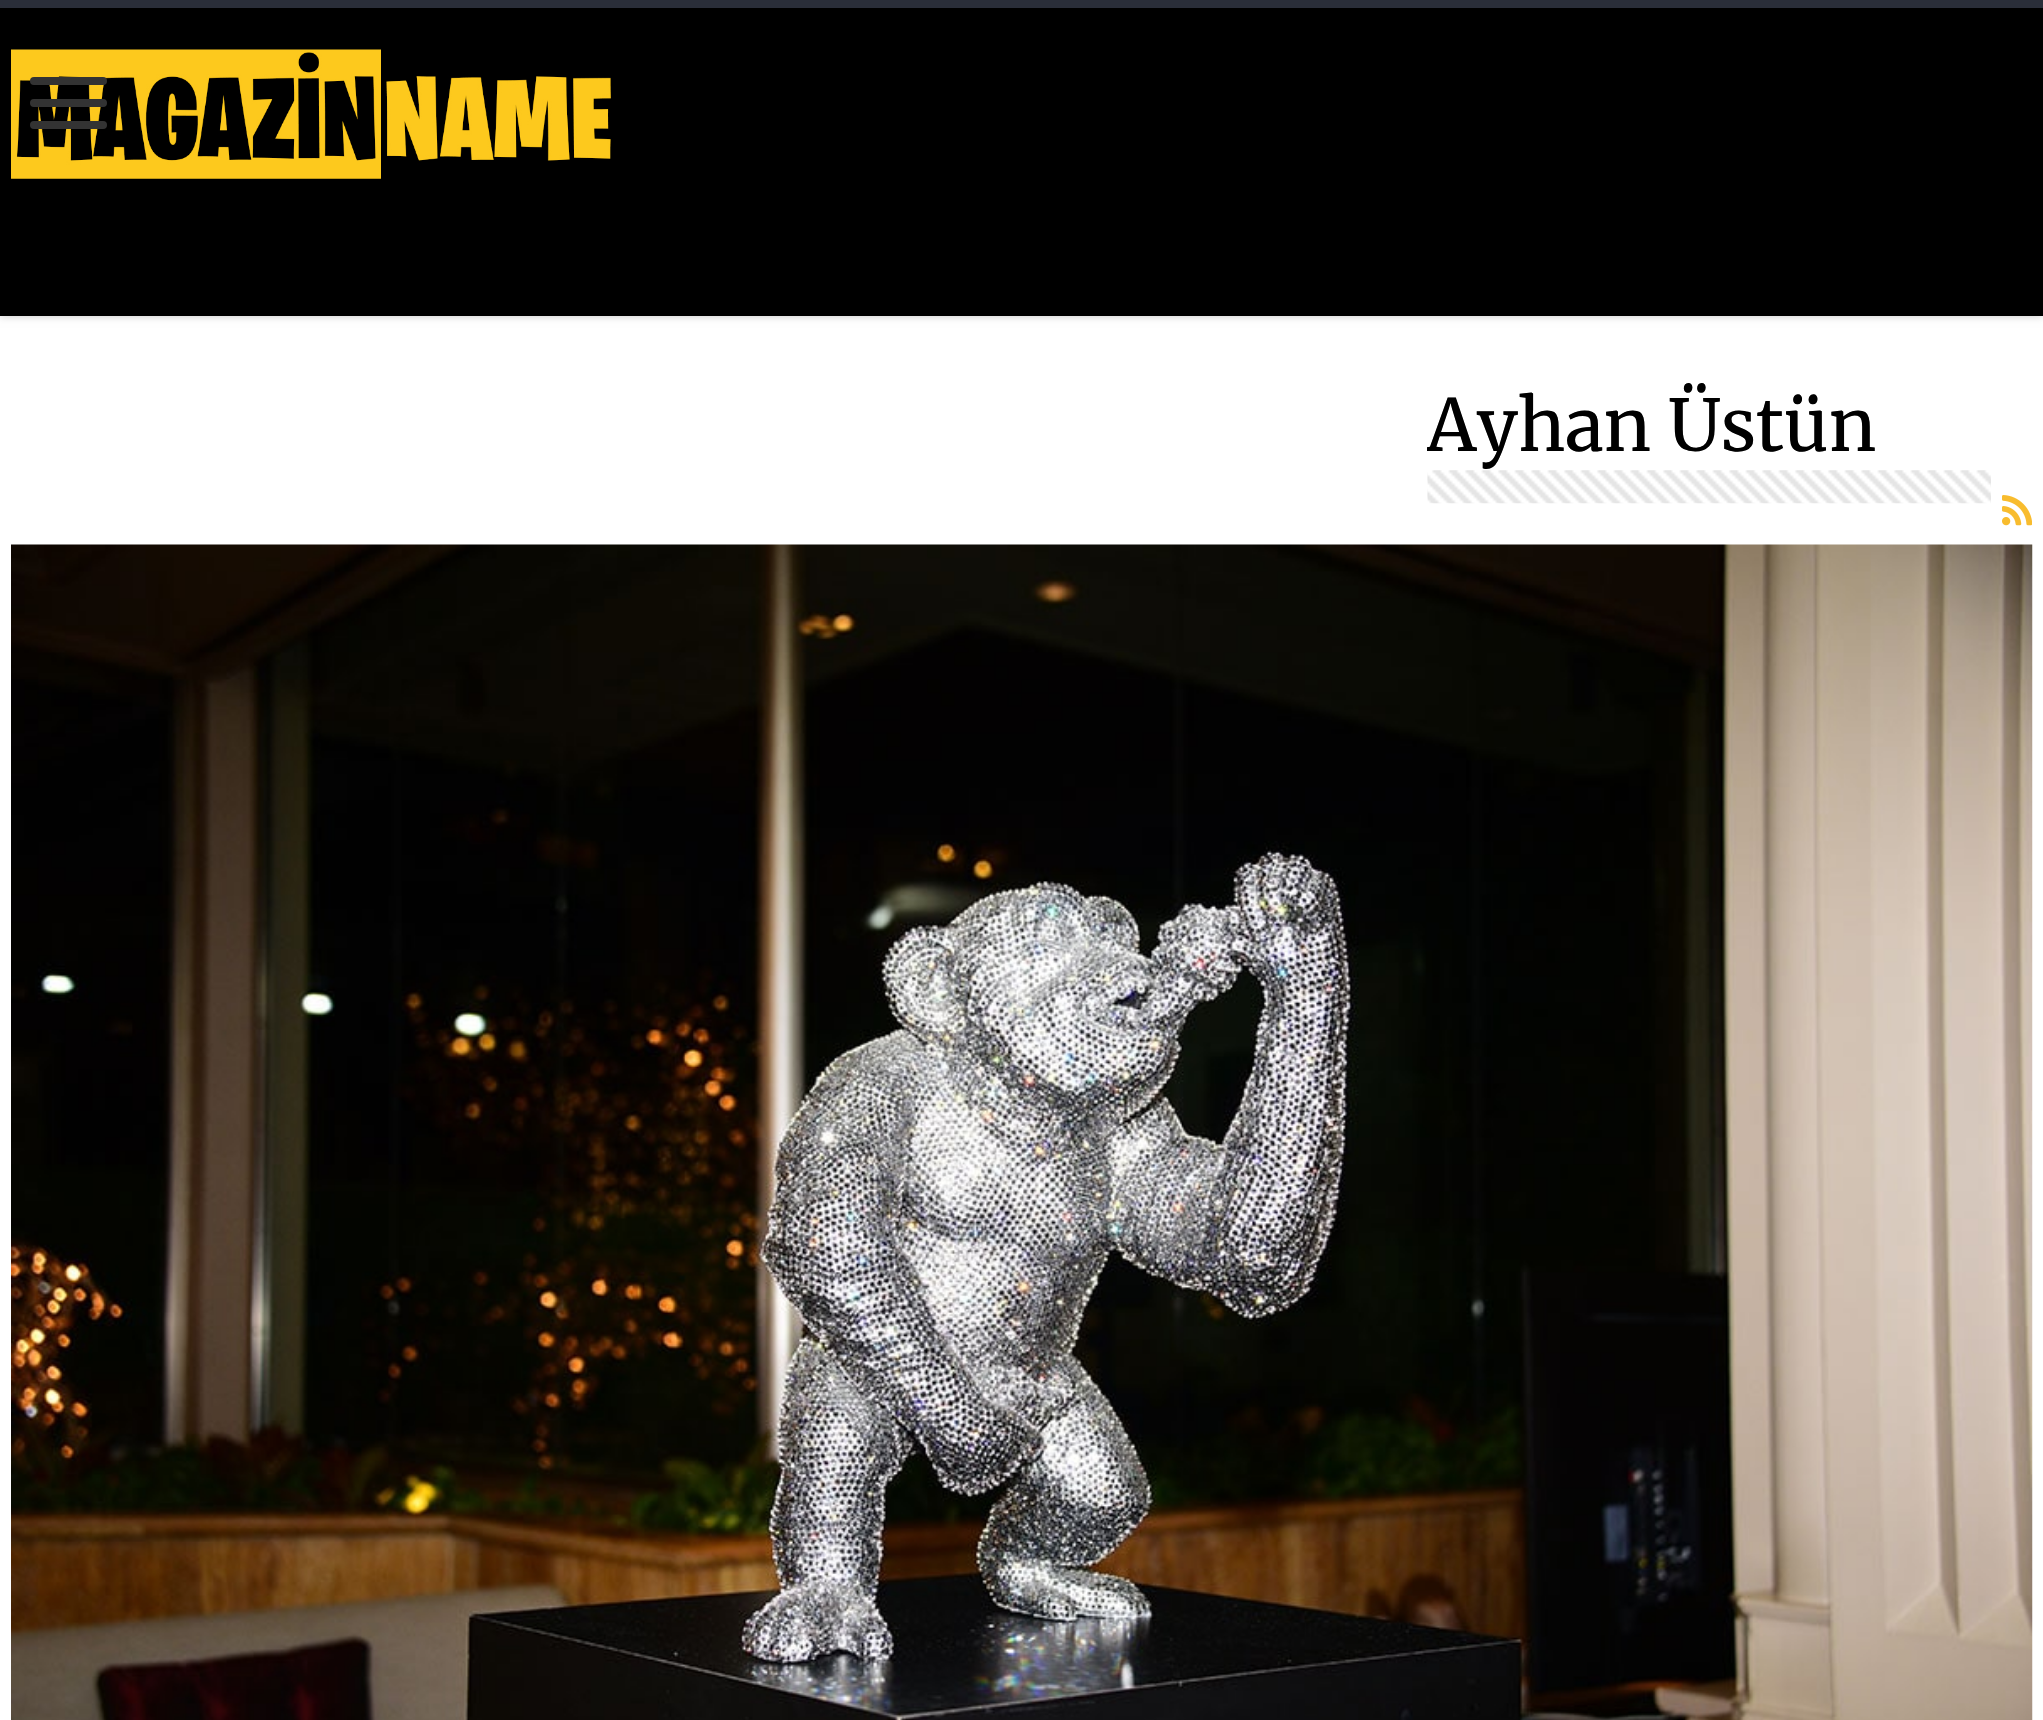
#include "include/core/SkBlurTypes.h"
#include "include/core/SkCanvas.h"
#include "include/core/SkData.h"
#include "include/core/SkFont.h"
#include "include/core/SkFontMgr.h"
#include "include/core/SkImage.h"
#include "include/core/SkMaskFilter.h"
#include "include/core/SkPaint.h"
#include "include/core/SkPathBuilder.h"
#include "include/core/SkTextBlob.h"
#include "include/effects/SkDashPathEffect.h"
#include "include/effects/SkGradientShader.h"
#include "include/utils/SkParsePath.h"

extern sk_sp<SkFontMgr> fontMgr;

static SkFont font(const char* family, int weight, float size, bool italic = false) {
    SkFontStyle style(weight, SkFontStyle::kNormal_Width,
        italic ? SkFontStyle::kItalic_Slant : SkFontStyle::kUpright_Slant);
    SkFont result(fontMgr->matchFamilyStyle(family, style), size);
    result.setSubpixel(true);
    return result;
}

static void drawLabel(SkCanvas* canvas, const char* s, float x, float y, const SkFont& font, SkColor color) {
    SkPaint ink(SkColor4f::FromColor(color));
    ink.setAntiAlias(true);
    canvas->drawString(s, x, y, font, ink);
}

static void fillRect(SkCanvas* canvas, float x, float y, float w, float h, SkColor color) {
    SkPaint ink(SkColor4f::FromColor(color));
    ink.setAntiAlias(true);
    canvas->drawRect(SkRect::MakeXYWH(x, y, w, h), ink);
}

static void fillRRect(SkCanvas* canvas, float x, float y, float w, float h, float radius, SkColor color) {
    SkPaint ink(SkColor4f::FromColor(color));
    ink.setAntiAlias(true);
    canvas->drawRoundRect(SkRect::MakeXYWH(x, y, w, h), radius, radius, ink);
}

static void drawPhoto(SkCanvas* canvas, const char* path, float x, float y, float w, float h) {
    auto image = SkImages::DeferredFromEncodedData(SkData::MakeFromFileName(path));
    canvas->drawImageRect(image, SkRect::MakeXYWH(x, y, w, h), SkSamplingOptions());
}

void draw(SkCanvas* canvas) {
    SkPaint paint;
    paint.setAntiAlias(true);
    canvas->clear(0xFFFFFFFF);
    paint.setColor(0xFFCACACA);
    paint.setMaskFilter(SkMaskFilter::MakeBlur(kNormal_SkBlurStyle, 4));
    canvas->drawRect(SkRect::MakeXYWH(0, 0, 2043, 316), paint);
    paint.setMaskFilter(nullptr);
    fillRect(canvas, 0, 8, 2043, 308, 0xFF000000);
    fillRect(canvas, 0, 0, 2043, 8, 0xFF2A2E39);
    drawPhoto(canvas, "assets/img1.png", 11, 49, 600, 130);
    fillRRect(canvas, 30, 77, 77, 8, 4, 0xFF333333);
    fillRRect(canvas, 30, 99, 77, 8, 4, 0xFF333333);
    fillRRect(canvas, 30, 121, 77, 8, 4, 0xFF333333);
    canvas->save();
    canvas->clipRect(SkRect::MakeXYWH(1427, 371, 605, 174));
    SkFont font1 = font("Merriweather", 400, 71.5f);
    drawLabel(canvas, "Ayhan Üstün", 1426, 451, font1, 0xFF000000);
    canvas->restore();
    drawPhoto(canvas, "assets/img2.png", 1427, 470, 564, 34);
    drawPhoto(canvas, "assets/img3.png", 2002, 495, 30, 31);
    drawPhoto(canvas, "assets/img4.png", 11, 544, 2022, 1176);
}
